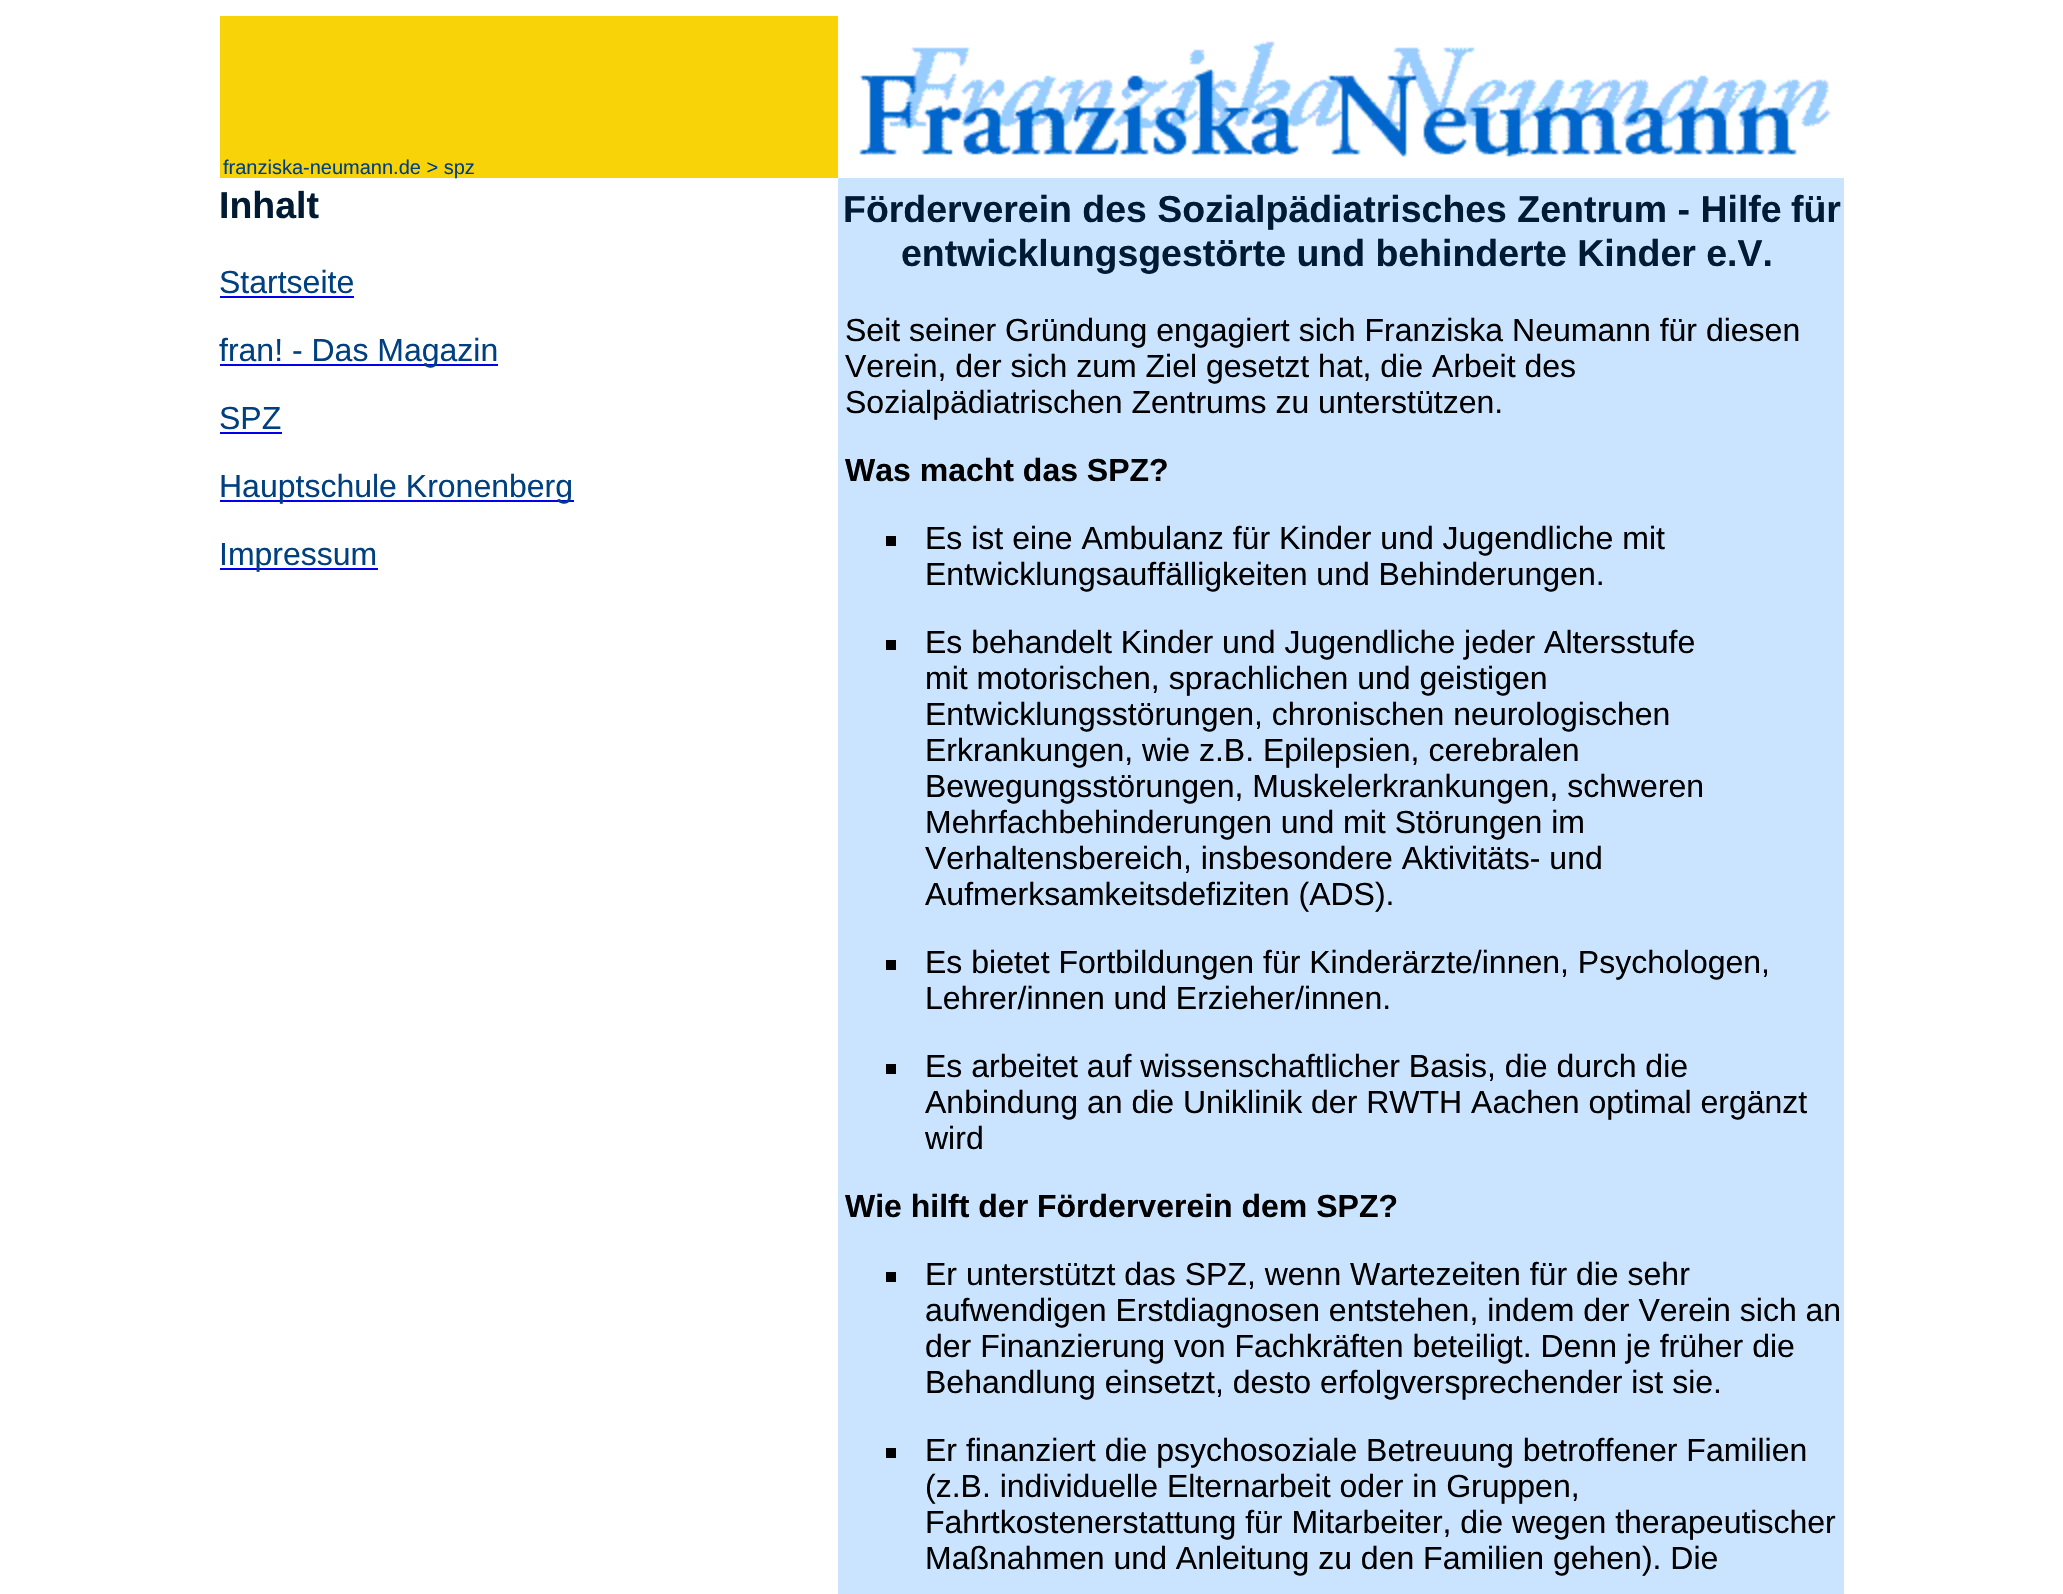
#include "include/core/SkBlurTypes.h"
#include "include/core/SkCanvas.h"
#include "include/core/SkData.h"
#include "include/core/SkFont.h"
#include "include/core/SkFontMgr.h"
#include "include/core/SkImage.h"
#include "include/core/SkMaskFilter.h"
#include "include/core/SkPaint.h"
#include "include/core/SkPathBuilder.h"
#include "include/core/SkTextBlob.h"
#include "include/effects/SkDashPathEffect.h"
#include "include/effects/SkGradientShader.h"
#include "include/utils/SkParsePath.h"

extern sk_sp<SkFontMgr> fontMgr;

static SkFont font(const char* family, int weight, float size, bool italic = false) {
    SkFontStyle style(weight, SkFontStyle::kNormal_Width,
        italic ? SkFontStyle::kItalic_Slant : SkFontStyle::kUpright_Slant);
    SkFont result(fontMgr->matchFamilyStyle(family, style), size);
    result.setSubpixel(true);
    return result;
}

static void drawLabel(SkCanvas* canvas, const char* s, float x, float y, const SkFont& font, SkColor color) {
    SkPaint ink(SkColor4f::FromColor(color));
    ink.setAntiAlias(true);
    canvas->drawString(s, x, y, font, ink);
}

static void fillRect(SkCanvas* canvas, float x, float y, float w, float h, SkColor color) {
    SkPaint ink(SkColor4f::FromColor(color));
    ink.setAntiAlias(true);
    canvas->drawRect(SkRect::MakeXYWH(x, y, w, h), ink);
}

static void drawPhoto(SkCanvas* canvas, const char* path, float x, float y, float w, float h) {
    auto image = SkImages::DeferredFromEncodedData(SkData::MakeFromFileName(path));
    canvas->drawImageRect(image, SkRect::MakeXYWH(x, y, w, h), SkSamplingOptions());
}

void draw(SkCanvas* canvas) {
    SkPaint paint;
    paint.setAntiAlias(true);
    canvas->clear(0xFFFFFFFF);
    drawPhoto(canvas, "assets/img1.png", 859, 41, 972, 118);
    fillRect(canvas, 220, 16, 618, 162, 0xFFF8D307);
    SkFont font1 = font("Liberation Sans", 400, 20);
    drawLabel(canvas, "franziska-neumann.de > spz", 223, 174, font1, 0xFF004080);
    SkFont font2 = font("Liberation Sans", 700, 37.45f);
    drawLabel(canvas, "Inhalt", 219, 218, font2, 0xFF001A33);
    SkFont font3 = font("Liberation Sans", 400, 32);
    drawLabel(canvas, "Startseite", 219, 293, font3, 0xFF004080);
    fillRect(canvas, 220, 296, 134, 2, 0xFF0000EE);
    fillRect(canvas, 220, 364, 278, 2, 0xFF0000EE);
    drawLabel(canvas, "fran! - Das Magazin", 219, 361, font3, 0xFF004080);
    drawLabel(canvas, "SPZ", 219, 429, font3, 0xFF004080);
    fillRect(canvas, 220, 432, 62, 2, 0xFF0000EE);
    fillRect(canvas, 220, 500, 354, 2, 0xFF0000EE);
    drawLabel(canvas, "Hauptschule Kronenberg", 219, 497, font3, 0xFF004080);
    fillRect(canvas, 220, 568, 158, 2, 0xFF0000EE);
    drawLabel(canvas, "Impressum", 219, 565, font3, 0xFF004080);
    fillRect(canvas, 838, 178, 1006, 1416, 0xFFCAE4FF);
    drawLabel(canvas, "Förderverein des Sozialpädiatrisches Zentrum - Hilfe", 843, 222, font2, 0xFF001A33);
    drawLabel(canvas, "für", 1791, 222, font2, 0xFF001A33);
    drawLabel(canvas, "entwicklungsgestörte und behinderte Kinder e.V.", 901, 266, font2, 0xFF001A33);
    drawLabel(canvas, "Seit seiner Gründung engagiert sich Franziska Neumann für diesen", 845, 341, font3, 0xFF000000);
    drawLabel(canvas, "Verein, der sich zum Ziel gesetzt hat, die Arbeit des", 845, 377, font3, 0xFF000000);
    drawLabel(canvas, "Sozialpädiatrischen Zentrums zu unterstützen.", 845, 413, font3, 0xFF000000);
    SkFont font4 = font("Liberation Sans", 700, 32);
    drawLabel(canvas, "Was macht das SPZ?", 845, 481, font4, 0xFF000000);
    fillRect(canvas, 886, 536, 10, 10, 0xFF000000);
    drawLabel(canvas, "Es ist eine Ambulanz für Kinder und Jugendliche mit", 925, 549, font3, 0xFF000000);
    drawLabel(canvas, "Entwicklungsauffälligkeiten und Behinderungen.", 925, 585, font3, 0xFF000000);
    fillRect(canvas, 886, 640, 10, 10, 0xFF000000);
    drawLabel(canvas, "Es behandelt Kinder und Jugendliche jeder Altersstufe", 925, 653, font3, 0xFF000000);
    drawLabel(canvas, "mit motorischen, sprachlichen und geistigen", 925, 689, font3, 0xFF000000);
    drawLabel(canvas, "Entwicklungsstörungen, chronischen neurologischen", 925, 725, font3, 0xFF000000);
    drawLabel(canvas, "Erkrankungen, wie z.B. Epilepsien, cerebralen", 925, 761, font3, 0xFF000000);
    drawLabel(canvas, "Bewegungsstörungen, Muskelerkrankungen, schweren", 925, 797, font3, 0xFF000000);
    drawLabel(canvas, "Mehrfachbehinderungen und mit Störungen im", 925, 833, font3, 0xFF000000);
    drawLabel(canvas, "Verhaltensbereich, insbesondere Aktivitäts- und", 925, 869, font3, 0xFF000000);
    drawLabel(canvas, "Aufmerksamkeitsdefiziten (ADS).", 925, 905, font3, 0xFF000000);
    fillRect(canvas, 886, 960, 10, 10, 0xFF000000);
    drawLabel(canvas, "Es bietet Fortbildungen für Kinderärzte/innen, Psychologen,", 925, 973, font3, 0xFF000000);
    drawLabel(canvas, "Lehrer/innen und Erzieher/innen.", 925, 1009, font3, 0xFF000000);
    fillRect(canvas, 886, 1064, 10, 10, 0xFF000000);
    drawLabel(canvas, "Es arbeitet auf wissenschaftlicher Basis, die durch die", 925, 1077, font3, 0xFF000000);
    drawLabel(canvas, "Anbindung an die Uniklinik der RWTH Aachen optimal ergänzt", 925, 1113, font3, 0xFF000000);
    drawLabel(canvas, "wird", 925, 1149, font3, 0xFF000000);
    drawLabel(canvas, "Wie hilft der Förderverein dem SPZ?", 845, 1217, font4, 0xFF000000);
    fillRect(canvas, 886, 1272, 10, 10, 0xFF000000);
    drawLabel(canvas, "Er unterstützt das SPZ, wenn Wartezeiten für die sehr", 925, 1285, font3, 0xFF000000);
    drawLabel(canvas, "aufwendigen Erstdiagnosen entstehen, indem der Verein sich an", 925, 1321, font3, 0xFF000000);
    drawLabel(canvas, "der Finanzierung von Fachkräften beteiligt. Denn je früher die", 925, 1357, font3, 0xFF000000);
    drawLabel(canvas, "Behandlung einsetzt, desto erfolgversprechender ist sie.", 925, 1393, font3, 0xFF000000);
    fillRect(canvas, 886, 1448, 10, 10, 0xFF000000);
    drawLabel(canvas, "Er finanziert die psychosoziale Betreuung betroffener Familien", 925, 1461, font3, 0xFF000000);
    drawLabel(canvas, "(z.B. individuelle Elternarbeit oder in Gruppen,", 925, 1497, font3, 0xFF000000);
    drawLabel(canvas, "Fahrtkostenerstattung für Mitarbeiter, die wegen therapeutischer", 925, 1533, font3, 0xFF000000);
    drawLabel(canvas, "Maßnahmen und Anleitung zu den Familien gehen). Die", 925, 1569, font3, 0xFF000000);
}
